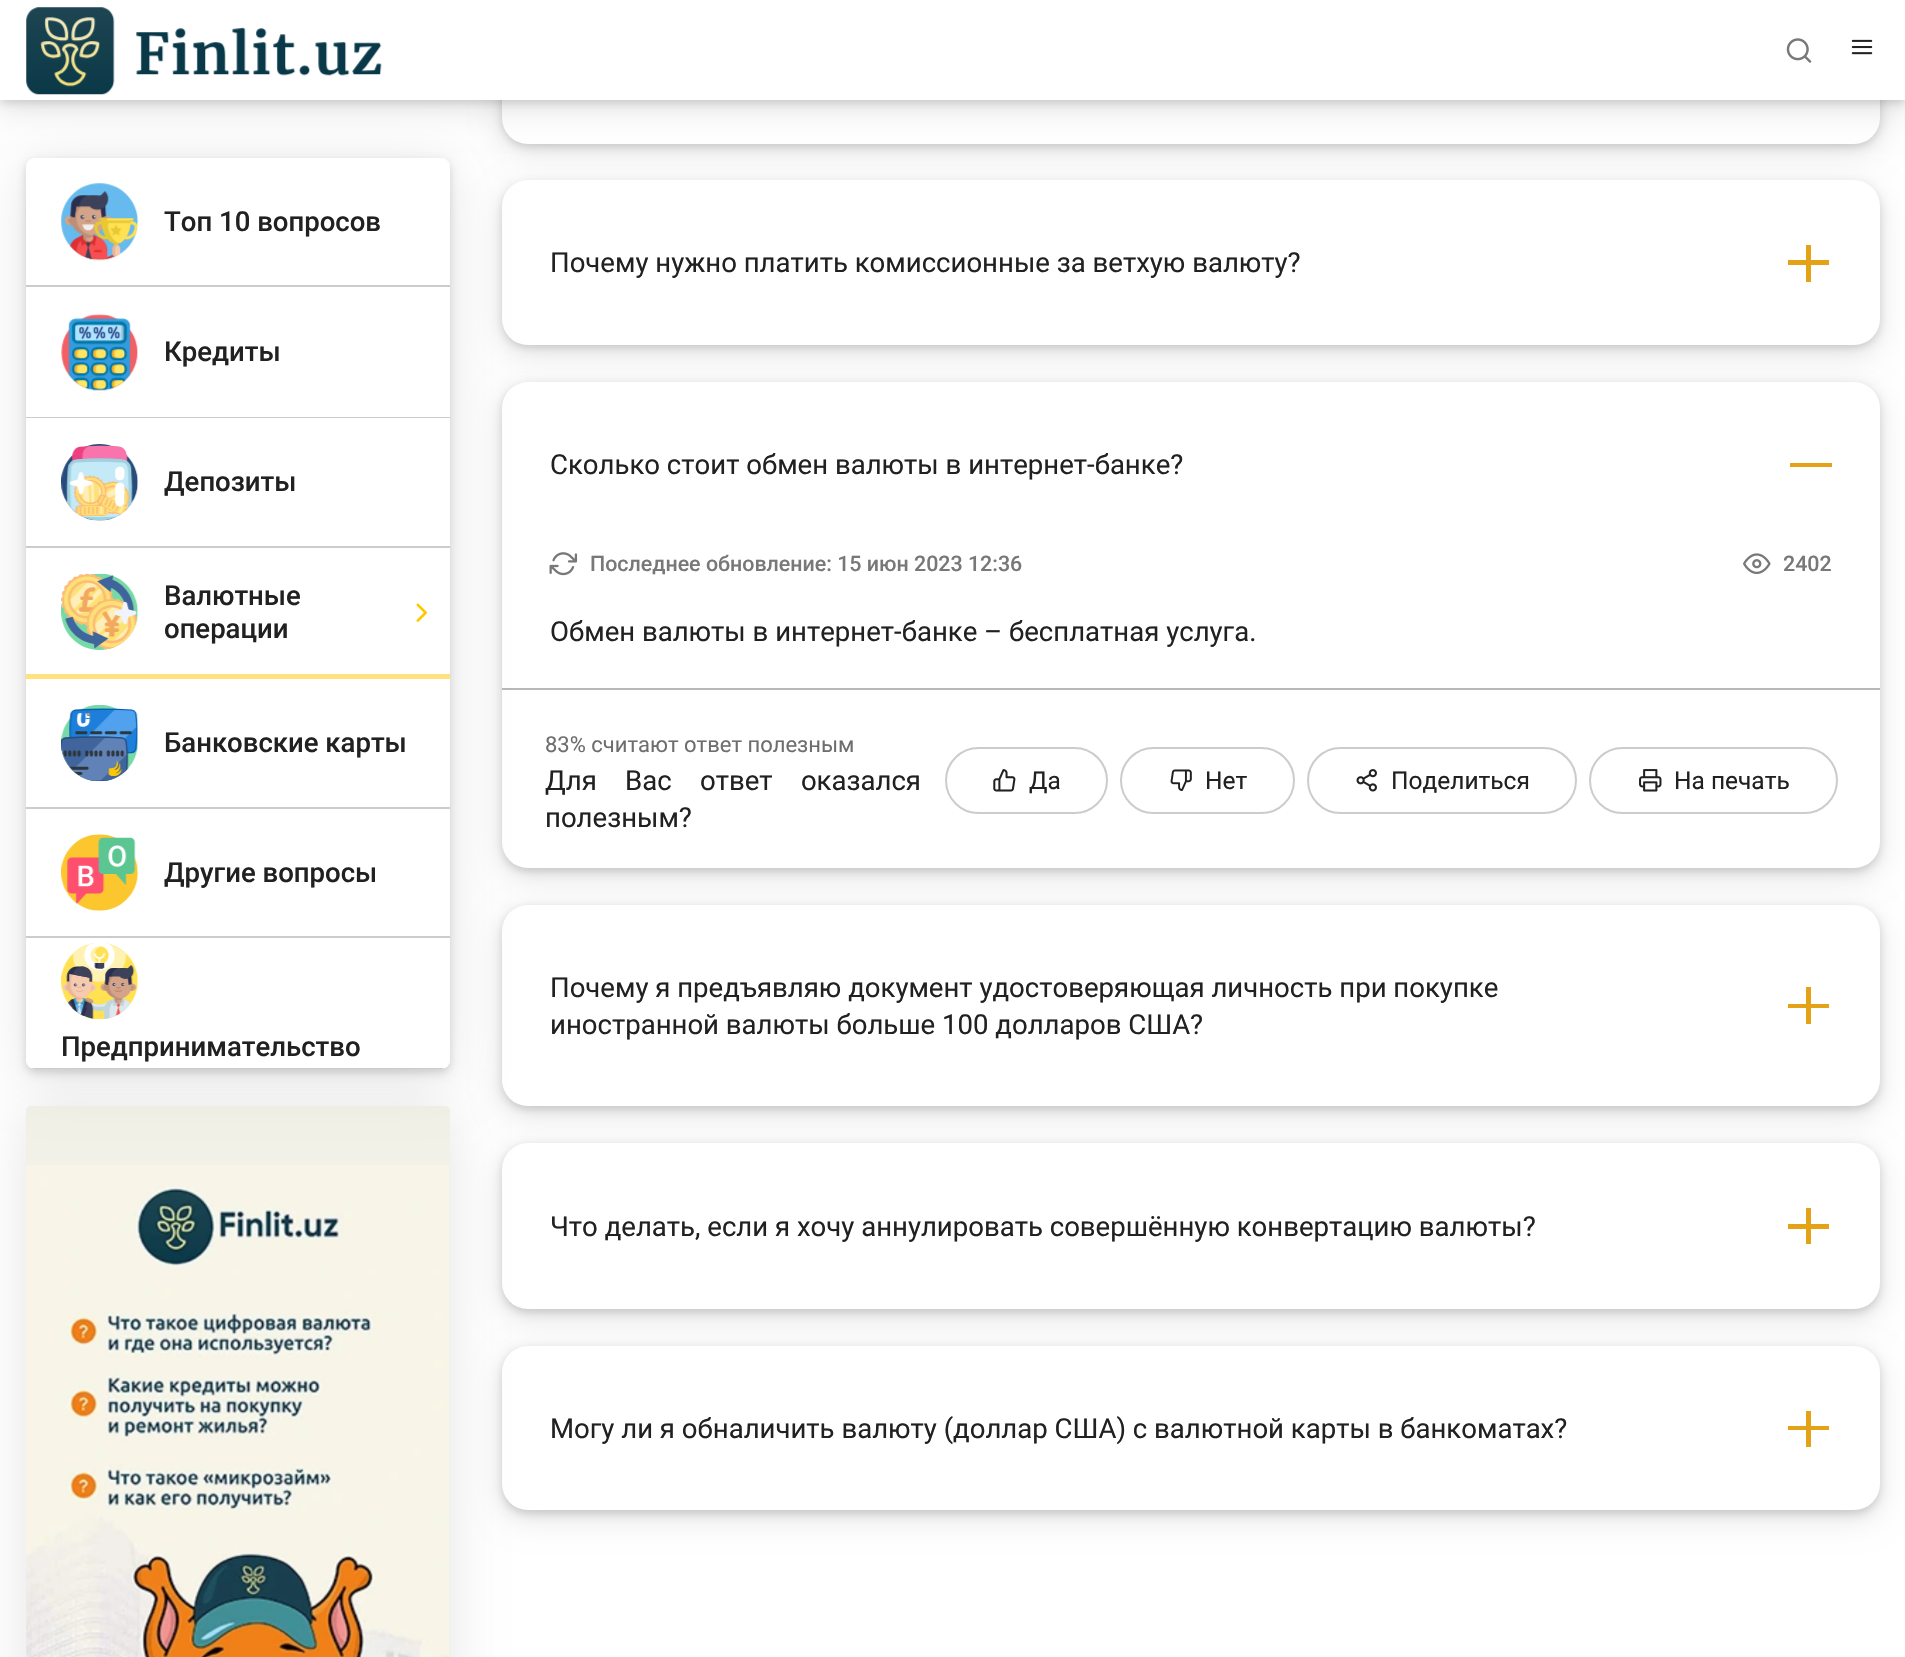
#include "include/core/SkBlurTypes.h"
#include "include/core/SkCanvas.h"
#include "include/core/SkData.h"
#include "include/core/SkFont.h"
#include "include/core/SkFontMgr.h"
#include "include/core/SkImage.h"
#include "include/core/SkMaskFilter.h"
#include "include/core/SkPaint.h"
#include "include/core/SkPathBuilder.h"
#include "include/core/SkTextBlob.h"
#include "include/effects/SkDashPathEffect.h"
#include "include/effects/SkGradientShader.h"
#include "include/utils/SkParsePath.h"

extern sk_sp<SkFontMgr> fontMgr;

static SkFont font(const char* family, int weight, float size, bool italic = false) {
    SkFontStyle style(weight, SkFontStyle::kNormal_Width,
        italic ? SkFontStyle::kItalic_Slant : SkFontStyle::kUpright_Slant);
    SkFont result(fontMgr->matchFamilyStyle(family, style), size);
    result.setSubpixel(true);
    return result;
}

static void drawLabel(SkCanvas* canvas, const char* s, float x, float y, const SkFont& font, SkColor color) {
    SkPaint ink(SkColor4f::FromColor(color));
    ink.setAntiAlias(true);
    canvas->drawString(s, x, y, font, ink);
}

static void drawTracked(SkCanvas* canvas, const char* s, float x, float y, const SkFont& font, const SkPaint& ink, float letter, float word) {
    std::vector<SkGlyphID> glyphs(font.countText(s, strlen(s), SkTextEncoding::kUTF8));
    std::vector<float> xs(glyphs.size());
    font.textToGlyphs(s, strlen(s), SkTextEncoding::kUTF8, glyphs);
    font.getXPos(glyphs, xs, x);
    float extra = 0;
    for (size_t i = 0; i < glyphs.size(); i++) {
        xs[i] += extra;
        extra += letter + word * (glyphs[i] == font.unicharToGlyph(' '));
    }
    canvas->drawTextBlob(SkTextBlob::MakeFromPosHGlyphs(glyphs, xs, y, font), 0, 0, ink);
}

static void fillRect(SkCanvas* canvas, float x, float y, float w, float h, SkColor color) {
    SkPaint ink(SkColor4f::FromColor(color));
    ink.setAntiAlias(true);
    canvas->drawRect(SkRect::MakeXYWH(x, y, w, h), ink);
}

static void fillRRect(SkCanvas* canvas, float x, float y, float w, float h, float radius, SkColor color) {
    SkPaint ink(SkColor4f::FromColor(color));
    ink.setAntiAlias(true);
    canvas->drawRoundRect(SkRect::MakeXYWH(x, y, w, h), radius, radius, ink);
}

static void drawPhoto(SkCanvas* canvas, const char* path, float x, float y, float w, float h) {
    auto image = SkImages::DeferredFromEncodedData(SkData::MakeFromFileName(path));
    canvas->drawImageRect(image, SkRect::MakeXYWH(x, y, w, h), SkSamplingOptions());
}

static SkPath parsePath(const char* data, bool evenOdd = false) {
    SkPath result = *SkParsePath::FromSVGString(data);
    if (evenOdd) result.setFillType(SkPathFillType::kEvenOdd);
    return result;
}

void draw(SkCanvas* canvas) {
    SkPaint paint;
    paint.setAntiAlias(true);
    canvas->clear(0xFFFFFFFF);
    paint.setColor(0x26000000);
    paint.setMaskFilter(SkMaskFilter::MakeBlur(kNormal_SkBlurStyle, 4.5f));
    canvas->drawRoundRect(SkRect::MakeXYWH(502, -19, 1378, 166), 26, 26, paint);
    paint.setMaskFilter(nullptr);
    paint.setColor(0x1A000000);
    paint.setMaskFilter(SkMaskFilter::MakeBlur(kNormal_SkBlurStyle, 15));
    canvas->drawRoundRect(SkRect::MakeXYWH(502, -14, 1378, 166), 26, 26, paint);
    paint.setMaskFilter(nullptr);
    fillRRect(canvas, 502, -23, 1378, 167, 26, 0xFFFFFFFF);
    paint.setColor(0x26000000);
    paint.setMaskFilter(SkMaskFilter::MakeBlur(kNormal_SkBlurStyle, 4.5f));
    canvas->drawRect(SkRect::MakeXYWH(0, 4, 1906, 99), paint);
    paint.setMaskFilter(nullptr);
    paint.setColor(0x1A000000);
    paint.setMaskFilter(SkMaskFilter::MakeBlur(kNormal_SkBlurStyle, 15));
    canvas->drawRect(SkRect::MakeXYWH(0, 9, 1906, 100), paint);
    paint.setMaskFilter(nullptr);
    paint.setColor(0x26000000);
    paint.setMaskFilter(SkMaskFilter::MakeBlur(kNormal_SkBlurStyle, 4.5f));
    canvas->drawRoundRect(SkRect::MakeXYWH(502, 184, 1378, 164), 26, 26, paint);
    paint.setMaskFilter(nullptr);
    paint.setColor(0x1A000000);
    paint.setMaskFilter(SkMaskFilter::MakeBlur(kNormal_SkBlurStyle, 15));
    canvas->drawRoundRect(SkRect::MakeXYWH(502, 189, 1378, 165), 26, 26, paint);
    paint.setMaskFilter(nullptr);
    fillRRect(canvas, 502, 180, 1378, 165, 26, 0xFFFFFFFF);
    paint.setMaskFilter(SkMaskFilter::MakeBlur(kNormal_SkBlurStyle, 15));
    canvas->drawRoundRect(SkRect::MakeXYWH(502, 390, 1378, 487), 26, 26, paint);
    paint.setMaskFilter(nullptr);
    paint.setColor(0x26000000);
    paint.setMaskFilter(SkMaskFilter::MakeBlur(kNormal_SkBlurStyle, 4.5f));
    canvas->drawRoundRect(SkRect::MakeXYWH(502, 908, 1378, 202), 26, 26, paint);
    paint.setMaskFilter(nullptr);
    paint.setColor(0x1A000000);
    paint.setMaskFilter(SkMaskFilter::MakeBlur(kNormal_SkBlurStyle, 15));
    canvas->drawRoundRect(SkRect::MakeXYWH(502, 914, 1378, 201), 26, 26, paint);
    paint.setMaskFilter(nullptr);
    fillRRect(canvas, 502, 905, 1378, 201, 26, 0xFFFFFFFF);
    paint.setColor(0x26000000);
    paint.setMaskFilter(SkMaskFilter::MakeBlur(kNormal_SkBlurStyle, 4.5f));
    canvas->drawRoundRect(SkRect::MakeXYWH(502, 1146, 1378, 167), 26, 26, paint);
    paint.setMaskFilter(nullptr);
    paint.setColor(0x1A000000);
    paint.setMaskFilter(SkMaskFilter::MakeBlur(kNormal_SkBlurStyle, 15));
    canvas->drawRoundRect(SkRect::MakeXYWH(502, 1152, 1378, 166), 26, 26, paint);
    paint.setMaskFilter(nullptr);
    fillRRect(canvas, 502, 1143, 1378, 166, 26, 0xFFFFFFFF);
    paint.setColor(0x26000000);
    paint.setMaskFilter(SkMaskFilter::MakeBlur(kNormal_SkBlurStyle, 4.5f));
    canvas->drawRoundRect(SkRect::MakeXYWH(502, 1349, 1378, 165), 26, 26, paint);
    paint.setMaskFilter(nullptr);
    paint.setColor(0x1A000000);
    paint.setMaskFilter(SkMaskFilter::MakeBlur(kNormal_SkBlurStyle, 15));
    canvas->drawRoundRect(SkRect::MakeXYWH(502, 1355, 1378, 164), 26, 26, paint);
    paint.setMaskFilter(nullptr);
    fillRRect(canvas, 502, 1346, 1378, 164, 26, 0xFFFFFFFF);
    paint.setMaskFilter(SkMaskFilter::MakeBlur(kNormal_SkBlurStyle, 26));
    canvas->drawRoundRect(SkRect::MakeXYWH(26, 1115, 424, 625), 5, 5, paint);
    paint.setMaskFilter(nullptr);
    fillRRect(canvas, 26, 1106, 424, 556, 5, 0xFFF2F1E7);
    paint.setColor(0x26000000);
    paint.setMaskFilter(SkMaskFilter::MakeBlur(kNormal_SkBlurStyle, 4.5f));
    canvas->drawRoundRect(SkRect::MakeXYWH(502, 385, 1378, 487), 26, 26, paint);
    paint.setMaskFilter(nullptr);
    fillRRect(canvas, 502, 382, 1378, 486, 26, 0xFFFFFFFF);
    fillRect(canvas, 502, 688, 1378, 2, 0xFFB8B8B8);
    paint.setColor(0x1A000000);
    paint.setMaskFilter(SkMaskFilter::MakeBlur(kNormal_SkBlurStyle, 26));
    canvas->drawRoundRect(SkRect::MakeXYWH(26, 166, 424, 912), 9, 9, paint);
    paint.setMaskFilter(nullptr);
    fillRect(canvas, 0, 0, 1905, 100, 0xFFFFFFFF);
    drawPhoto(canvas, "assets/img1.png", 26, 7, 356, 88);
    drawPhoto(canvas, "assets/img2.png", 1786, 38, 26, 25);
    drawPhoto(canvas, "assets/img3.png", 1851, 39, 22, 16);
    paint.setColor(0x26000000);
    paint.setMaskFilter(SkMaskFilter::MakeBlur(kNormal_SkBlurStyle, 4.5f));
    canvas->drawRoundRect(SkRect::MakeXYWH(26, 161, 424, 912), 9, 9, paint);
    paint.setMaskFilter(nullptr);
    fillRRect(canvas, 26, 158, 424, 911, 9, 0xFFFFFFFF);
    paint.setColor(0xFFFFFFFF);
    canvas->drawPath(parsePath("M35 158H441C446 158 450 162 450 167V287H26V167C26 162 30 158 35 158Z"), paint);
    drawPhoto(canvas, "assets/img4.png", 61, 183, 78, 78);
    SkFont font1 = font("Roboto", 500, 27.55f);
    drawLabel(canvas, "Топ 10 вопросов", 164, 231, font1, 0xFF212121);
    fillRect(canvas, 26, 285, 424, 2, 0xFFCCCCCC);
    drawPhoto(canvas, "assets/img5.png", 61, 314, 77, 77);
    drawLabel(canvas, "Кредиты", 164, 361, font1, 0xFF212121);
    fillRect(canvas, 26, 417, 424, 1, 0xFFCCCCCC);
    drawPhoto(canvas, "assets/img6.png", 61, 444, 77, 77);
    drawLabel(canvas, "Депозиты", 164, 491, font1, 0xFF212121);
    fillRect(canvas, 26, 546, 424, 2, 0xFFCCCCCC);
    drawPhoto(canvas, "assets/img7.png", 61, 573, 77, 77);
    drawLabel(canvas, "Валютные", 164, 605, font1, 0xFF212121);
    drawLabel(canvas, "операции", 164, 638, font1, 0xFF212121);
    drawPhoto(canvas, "assets/img8.png", 416, 603, 11, 19);
    fillRect(canvas, 26, 674, 424, 5, 0xFFFFE27D);
    drawPhoto(canvas, "assets/img9.png", 61, 705, 77, 77);
    drawLabel(canvas, "Банковские карты", 164, 752, font1, 0xFF212121);
    fillRect(canvas, 26, 807, 424, 2, 0xFFCCCCCC);
    drawPhoto(canvas, "assets/img10.png", 61, 834, 77, 77);
    drawLabel(canvas, "Другие вопросы", 164, 882, font1, 0xFF212121);
    fillRect(canvas, 26, 936, 424, 2, 0xFFCCCCCC);
    canvas->drawPath(parsePath("M26 938H450V1060C450 1065 446 1069 441 1069H35C30 1069 26 1065 26 1060Z"), paint);
    drawPhoto(canvas, "assets/img11.png", 61, 943, 77, 77);
    drawLabel(canvas, "Предпринимательство", 61, 1056, font1, 0xFF212121);
    canvas->save();
    canvas->clipPath(parsePath("M35 158H441C446 158 450 162 450 167V1060C450 1065 446 1069 441 1069H35C30 1069 26 1065 26 1060V167C26 162 30 158 35 158Z"), true);
    fillRect(canvas, 26, 1068, 424, 1, 0xFFCCCCCC);
    canvas->restore();
    drawPhoto(canvas, "assets/img12.png", 26, 1165, 423, 492);
    SkFont font2 = font("Roboto", 400, 27.55f);
    drawLabel(canvas, "Почему нужно платить комиссионные за ветхую валюту?", 550, 272, font2, 0xFF212121);
    canvas->save();
    canvas->clipRect(SkRect::MakeXYWH(1787, 245, 45, 37));
    paint.setColor(0xFFE4A216);
    canvas->drawPath(parsePath("M1811 260H1829V265H1811V285H1806V265H1788V260H1806V241H1811Z"), paint);
    canvas->restore();
    drawLabel(canvas, "Сколько стоит обмен валюты в интернет-банке?", 550, 474, font2, 0xFF212121);
    fillRect(canvas, 1790, 463, 42, 4, 0xFFE4A216);
    drawPhoto(canvas, "assets/img13.png", 549, 552, 29, 24);
    SkFont font3 = font("Roboto", 500, 21.4f);
    drawLabel(canvas, "Последнее обновление: 15 июн 2023 12:36", 590, 571, font3, 0xFF787878);
    drawPhoto(canvas, "assets/img14.png", 1743, 553, 28, 21);
    drawLabel(canvas, "2402", 1783, 571, font3, 0xFF787878);
    drawLabel(canvas, "Обмен валюты в интернет-банке – бесплатная услуга.", 550, 641, font2, 0xFF212121);
    SkFont font4 = font("Roboto", 400, 22);
    drawLabel(canvas, "83% считают ответ полезным", 545, 752, font4, 0xFF6E6E6E);
    paint.setColor(0xFF212121);
    drawTracked(canvas, "Для Вас ответ оказался", 545, 790, font2, paint, 0, 21.5f);
    drawLabel(canvas, "полезным?", 545, 827, font2, 0xFF212121);
    paint.setStroke(true);
    paint.setStrokeWidth(2);
    paint.setColor(0xFFCCCCCC);
    canvas->drawRoundRect(SkRect::MakeXYWH(946, 748, 161, 65), 32.5f, 32.5f, paint);
    drawPhoto(canvas, "assets/img15.png", 993, 769, 23, 23);
    SkFont font5 = font("Roboto", 400, 24.5f);
    drawLabel(canvas, "Да", 1029, 789, font5, 0xFF212121);
    canvas->drawRoundRect(SkRect::MakeXYWH(1121, 748, 173, 65), 32.5f, 32.5f, paint);
    drawPhoto(canvas, "assets/img16.png", 1170, 769, 22, 22);
    drawLabel(canvas, "Нет", 1205, 789, font5, 0xFF212121);
    canvas->drawRoundRect(SkRect::MakeXYWH(1308, 748, 268, 65), 32.5f, 32.5f, paint);
    drawPhoto(canvas, "assets/img17.png", 1356, 769, 21, 23);
    drawLabel(canvas, "Поделиться", 1391, 789, font5, 0xFF212121);
    canvas->drawRoundRect(SkRect::MakeXYWH(1590, 748, 247, 65), 32.5f, 32.5f, paint);
    drawPhoto(canvas, "assets/img18.png", 1639, 769, 23, 23);
    drawLabel(canvas, "На печать", 1674, 789, font5, 0xFF212121);
    drawLabel(canvas, "Почему я предъявляю документ удостоверяющая личность при покупке", 550, 997, font2, 0xFF212121);
    drawLabel(canvas, "иностранной валюты больше 100 долларов США?", 550, 1034, font2, 0xFF212121);
    canvas->save();
    canvas->clipRect(SkRect::MakeXYWH(1787, 987, 45, 37));
    paint.setStroke(false);
    paint.setColor(0xFFE4A216);
    canvas->drawPath(parsePath("M1811 1004H1829V1008H1811V1028H1806V1008H1788V1004H1806V985H1811Z"), paint);
    canvas->restore();
    drawLabel(canvas, "Что делать, если я хочу аннулировать совершённую конвертацию валюты?", 550, 1236, font2, 0xFF212121);
    canvas->save();
    canvas->clipRect(SkRect::MakeXYWH(1787, 1208, 45, 36));
    canvas->drawPath(parsePath("M1811 1224H1829V1229H1811V1249H1806V1229H1788V1224H1806V1205H1811Z"), paint);
    canvas->restore();
    drawLabel(canvas, "Могу ли я обналичить валюту (доллар США) с валютной карты в банкоматах?", 550, 1438, font2, 0xFF212121);
    canvas->save();
    canvas->clipRect(SkRect::MakeXYWH(1787, 1411, 45, 36));
    canvas->drawPath(parsePath("M1811 1426H1829V1430H1811V1450H1806V1430H1788V1426H1806V1407H1811Z"), paint);
    canvas->restore();
}
